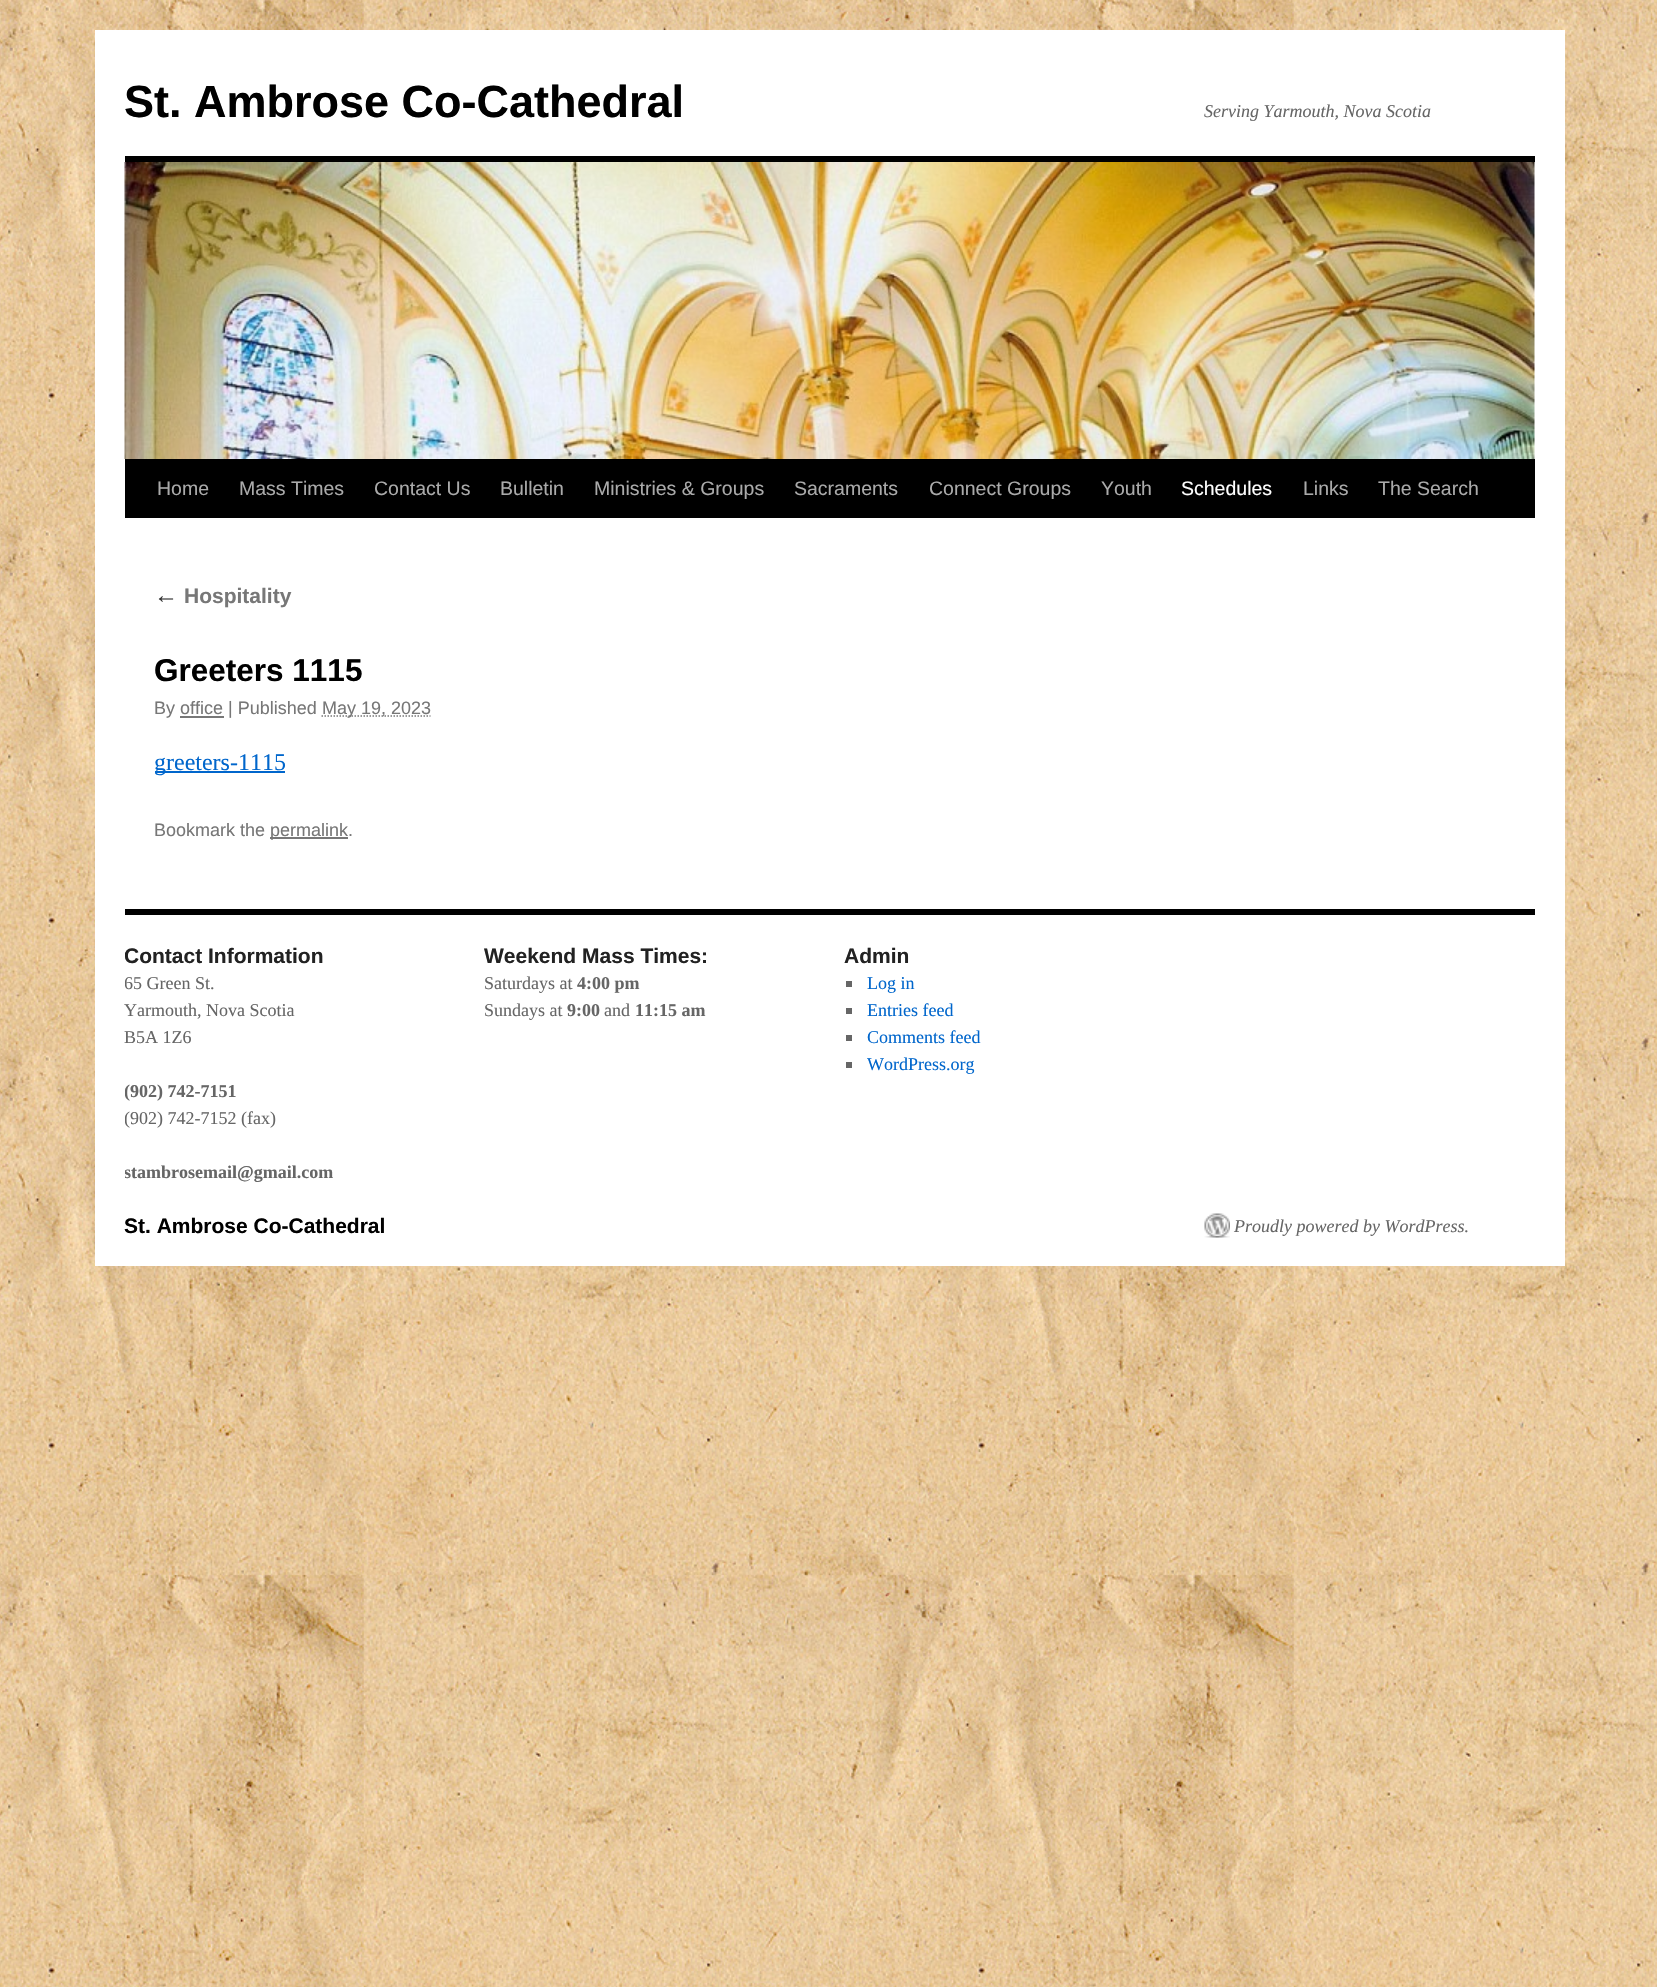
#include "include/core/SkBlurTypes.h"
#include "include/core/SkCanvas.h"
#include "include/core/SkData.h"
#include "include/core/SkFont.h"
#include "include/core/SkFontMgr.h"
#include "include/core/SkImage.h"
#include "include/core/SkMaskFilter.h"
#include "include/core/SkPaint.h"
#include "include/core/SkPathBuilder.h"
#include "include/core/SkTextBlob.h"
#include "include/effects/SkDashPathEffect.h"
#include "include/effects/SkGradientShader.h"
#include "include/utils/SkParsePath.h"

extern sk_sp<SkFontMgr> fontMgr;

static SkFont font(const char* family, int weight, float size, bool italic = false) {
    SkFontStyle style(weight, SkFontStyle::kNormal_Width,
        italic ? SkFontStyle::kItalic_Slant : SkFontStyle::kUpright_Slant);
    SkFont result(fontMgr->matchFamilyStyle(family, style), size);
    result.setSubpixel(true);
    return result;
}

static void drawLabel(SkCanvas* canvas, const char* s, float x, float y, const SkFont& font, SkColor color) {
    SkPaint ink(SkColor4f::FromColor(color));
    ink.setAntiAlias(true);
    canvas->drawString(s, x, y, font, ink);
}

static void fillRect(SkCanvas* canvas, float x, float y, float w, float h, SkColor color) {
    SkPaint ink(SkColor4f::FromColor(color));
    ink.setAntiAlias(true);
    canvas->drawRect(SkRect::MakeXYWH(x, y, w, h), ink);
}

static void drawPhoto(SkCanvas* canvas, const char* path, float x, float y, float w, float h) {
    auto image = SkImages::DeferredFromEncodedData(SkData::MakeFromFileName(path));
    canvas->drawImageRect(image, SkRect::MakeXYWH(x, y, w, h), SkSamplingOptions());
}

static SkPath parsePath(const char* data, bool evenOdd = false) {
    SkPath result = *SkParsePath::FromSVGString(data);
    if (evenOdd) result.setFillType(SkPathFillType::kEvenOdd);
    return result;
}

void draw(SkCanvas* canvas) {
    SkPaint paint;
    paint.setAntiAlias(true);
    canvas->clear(0xFFFFFFFF);
    drawPhoto(canvas, "assets/img1.png", 0, 0, 1657, 1987);
    fillRect(canvas, 95, 30, 1470, 1236, 0xFFFFFFFF);
    SkFont font1 = font("Liberation Sans", 700, 45);
    drawLabel(canvas, "St. Ambrose Co-Cathedral", 124, 117, font1, 0xFF000000);
    SkFont font2 = font("Liberation Serif", 400, 18, true);
    drawLabel(canvas, "Serving Yarmouth, Nova Scotia", 1204, 117, font2, 0xFF666666);
    fillRect(canvas, 125, 156, 1410, 6, 0xFF000000);
    fillRect(canvas, 125, 459, 1410, 59, 0xFF000000);
    drawPhoto(canvas, "assets/img2.png", 124, 162, 1411, 297);
    SkFont font3 = font("Liberation Sans", 400, 19.5f);
    drawLabel(canvas, "Home", 157, 495, font3, 0xFFAAAAAA);
    drawLabel(canvas, "Mass Times", 239, 495, font3, 0xFFAAAAAA);
    drawLabel(canvas, "Contact Us", 374, 495, font3, 0xFFAAAAAA);
    drawLabel(canvas, "Bulletin", 500, 495, font3, 0xFFAAAAAA);
    drawLabel(canvas, "Ministries & Groups", 594, 495, font3, 0xFFAAAAAA);
    drawLabel(canvas, "Sacraments", 794, 495, font3, 0xFFAAAAAA);
    drawLabel(canvas, "Connect Groups", 929, 495, font3, 0xFFAAAAAA);
    drawLabel(canvas, "Youth", 1101, 495, font3, 0xFFAAAAAA);
    drawLabel(canvas, "Schedules", 1181, 495, font3, 0xFFFFFFFF);
    drawLabel(canvas, "Links", 1303, 495, font3, 0xFFAAAAAA);
    drawLabel(canvas, "The Search", 1378, 495, font3, 0xFFAAAAAA);
    SkFont font4 = font("Liberation Serif", 400, 24, true);
    drawLabel(canvas, "←", 154, 603, font4, 0xFF333333);
    SkFont font5 = font("Liberation Sans", 700, 21);
    drawLabel(canvas, "Hospitality", 184, 603, font5, 0xFF777777);
    SkFont font6 = font("Liberation Sans", 700, 31.5f);
    drawLabel(canvas, "Greeters 1115", 154, 681, font6, 0xFF000000);
    SkFont font7 = font("Liberation Sans", 400, 18);
    drawLabel(canvas, "By office | Published", 154, 714, font7, 0xFF777777);
    paint.setStroke(true);
    paint.setStrokeWidth(1.5f);
    paint.setColor(0xFF777777);
    paint.setPathEffect(SkDashPathEffect::Make({{1.5f, 1.5f}}, 0));
    canvas->drawPath(parsePath("M321.5 716H430.5"), paint);
    paint.setPathEffect(nullptr);
    drawLabel(canvas, "May 19, 2023", 322, 714, font7, 0xFF777777);
    fillRect(canvas, 180, 716, 44, 2, 0xFF777777);
    fillRect(canvas, 155, 771, 130, 2, 0xFF0066CC);
    SkFont font8 = font("Liberation Serif", 400, 24);
    drawLabel(canvas, "greeters-1115", 154, 770, font8, 0xFF0066CC);
    drawLabel(canvas, "Bookmark the", 154, 836, font7, 0xFF777777);
    fillRect(canvas, 270, 837, 78, 2, 0xFF777777);
    drawLabel(canvas, "permalink.", 270, 836, font7, 0xFF777777);
    fillRect(canvas, 125, 909, 1410, 6, 0xFF000000);
    canvas->save();
    canvas->clipRect(SkRect::MakeXYWH(125, 942, 1410, 270));
    drawLabel(canvas, "Contact Information", 124, 963, font5, 0xFF222222);
    SkFont font9 = font("Liberation Serif", 400, 18);
    drawLabel(canvas, "65 Green St.", 124, 989, font9, 0xFF666666);
    canvas->restore();
    drawLabel(canvas, "Yarmouth, Nova Scotia", 124, 1016, font9, 0xFF666666);
    drawLabel(canvas, "B5A 1Z6", 124, 1043, font9, 0xFF666666);
    canvas->save();
    canvas->clipRect(SkRect::MakeXYWH(125, 942, 1410, 270));
    SkFont font10 = font("Liberation Serif", 700, 18);
    drawLabel(canvas, "(902) 742-7151", 124, 1097, font10, 0xFF666666);
    drawLabel(canvas, "(902) 742-7152 (fax)", 124, 1124, font9, 0xFF666666);
    drawLabel(canvas, "stambrosemail@gmail.com", 124, 1178, font10, 0xFF666666);
    canvas->restore();
    drawLabel(canvas, "Weekend Mass Times:", 484, 963, font5, 0xFF222222);
    drawLabel(canvas, "Saturdays at", 484, 989, font9, 0xFF666666);
    drawLabel(canvas, "4:00 pm", 577, 989, font10, 0xFF666666);
    drawLabel(canvas, "Sundays at", 484, 1016, font9, 0xFF666666);
    drawLabel(canvas, "9:00", 567, 1016, font10, 0xFF666666);
    drawLabel(canvas, "and", 604, 1016, font9, 0xFF666666);
    drawLabel(canvas, "11:15 am", 635, 1016, font10, 0xFF666666);
    drawLabel(canvas, "Admin", 844, 963, font5, 0xFF222222);
    fillRect(canvas, 846, 981, 6, 6, 0xFF666666);
    drawLabel(canvas, "Log in", 867, 989, font9, 0xFF0066CC);
    fillRect(canvas, 846, 1008, 6, 6, 0xFF666666);
    drawLabel(canvas, "Entries feed", 867, 1016, font9, 0xFF0066CC);
    fillRect(canvas, 846, 1035, 6, 6, 0xFF666666);
    drawLabel(canvas, "Comments feed", 867, 1043, font9, 0xFF0066CC);
    fillRect(canvas, 846, 1062, 6, 6, 0xFF666666);
    drawLabel(canvas, "WordPress.org", 867, 1070, font9, 0xFF0066CC);
    drawLabel(canvas, "St. Ambrose Co-Cathedral", 124, 1233, font5, 0xFF000000);
    drawPhoto(canvas, "assets/img3.png", 1204, 1213, 26, 25);
    drawLabel(canvas, "Proudly powered by WordPress.", 1234, 1232, font2, 0xFF666666);
}
